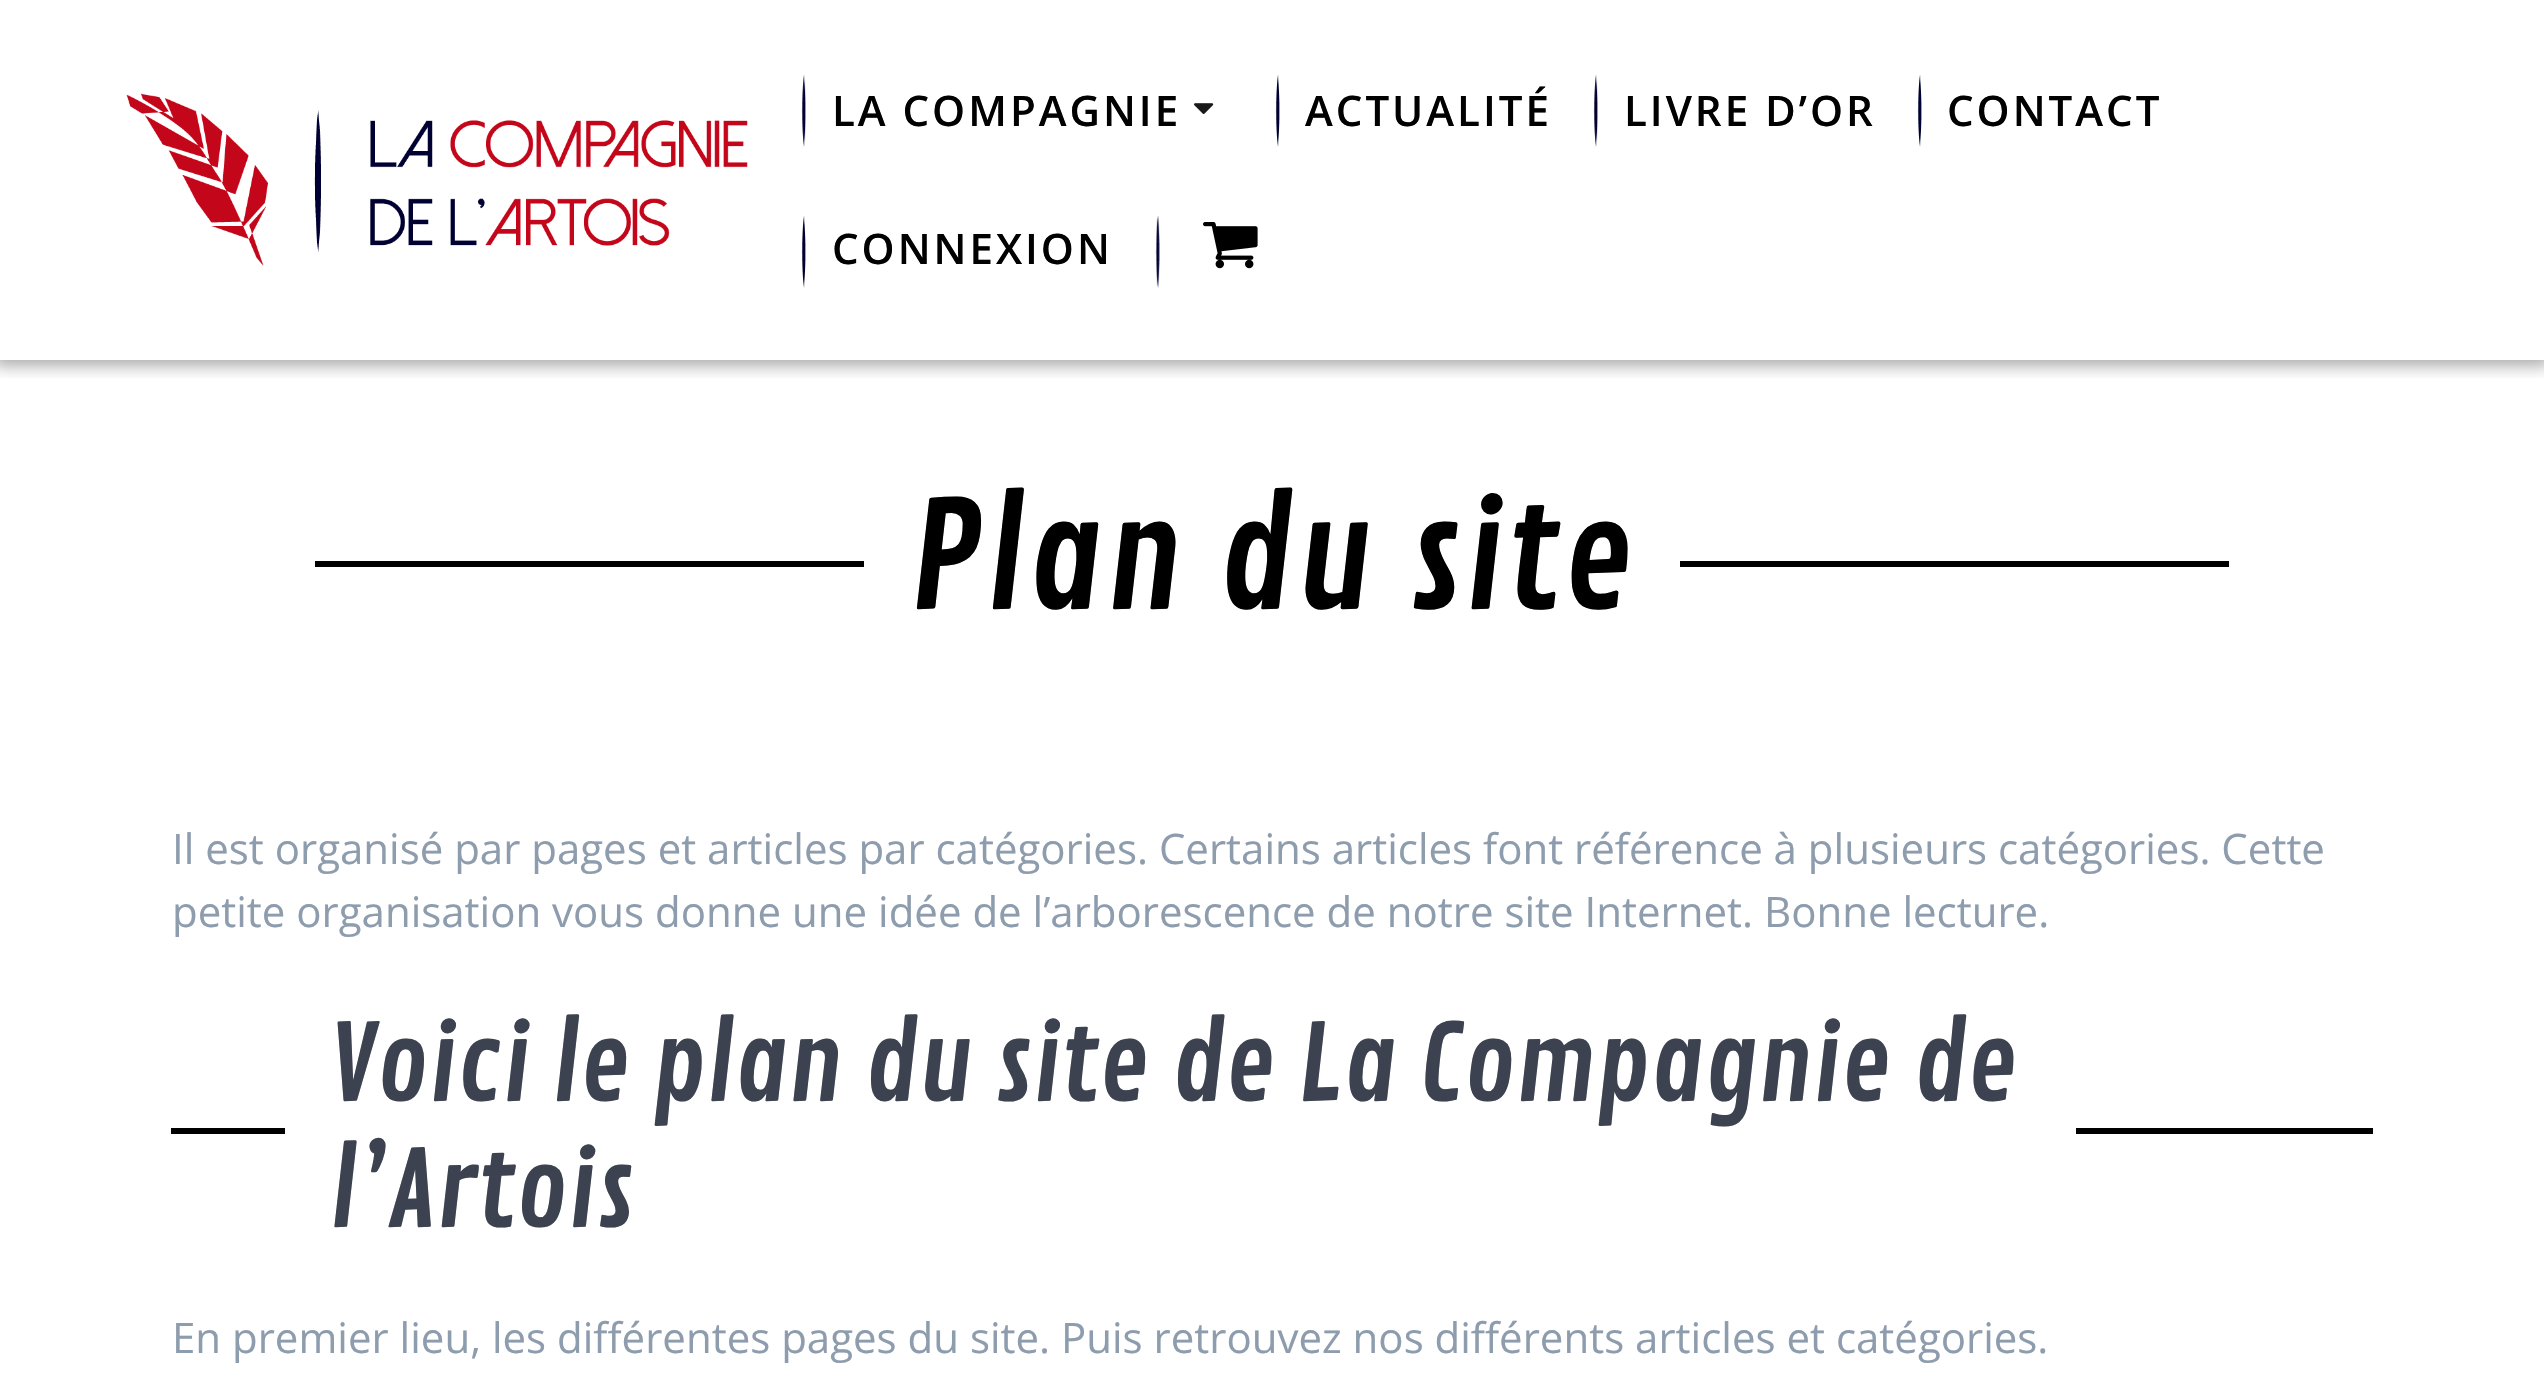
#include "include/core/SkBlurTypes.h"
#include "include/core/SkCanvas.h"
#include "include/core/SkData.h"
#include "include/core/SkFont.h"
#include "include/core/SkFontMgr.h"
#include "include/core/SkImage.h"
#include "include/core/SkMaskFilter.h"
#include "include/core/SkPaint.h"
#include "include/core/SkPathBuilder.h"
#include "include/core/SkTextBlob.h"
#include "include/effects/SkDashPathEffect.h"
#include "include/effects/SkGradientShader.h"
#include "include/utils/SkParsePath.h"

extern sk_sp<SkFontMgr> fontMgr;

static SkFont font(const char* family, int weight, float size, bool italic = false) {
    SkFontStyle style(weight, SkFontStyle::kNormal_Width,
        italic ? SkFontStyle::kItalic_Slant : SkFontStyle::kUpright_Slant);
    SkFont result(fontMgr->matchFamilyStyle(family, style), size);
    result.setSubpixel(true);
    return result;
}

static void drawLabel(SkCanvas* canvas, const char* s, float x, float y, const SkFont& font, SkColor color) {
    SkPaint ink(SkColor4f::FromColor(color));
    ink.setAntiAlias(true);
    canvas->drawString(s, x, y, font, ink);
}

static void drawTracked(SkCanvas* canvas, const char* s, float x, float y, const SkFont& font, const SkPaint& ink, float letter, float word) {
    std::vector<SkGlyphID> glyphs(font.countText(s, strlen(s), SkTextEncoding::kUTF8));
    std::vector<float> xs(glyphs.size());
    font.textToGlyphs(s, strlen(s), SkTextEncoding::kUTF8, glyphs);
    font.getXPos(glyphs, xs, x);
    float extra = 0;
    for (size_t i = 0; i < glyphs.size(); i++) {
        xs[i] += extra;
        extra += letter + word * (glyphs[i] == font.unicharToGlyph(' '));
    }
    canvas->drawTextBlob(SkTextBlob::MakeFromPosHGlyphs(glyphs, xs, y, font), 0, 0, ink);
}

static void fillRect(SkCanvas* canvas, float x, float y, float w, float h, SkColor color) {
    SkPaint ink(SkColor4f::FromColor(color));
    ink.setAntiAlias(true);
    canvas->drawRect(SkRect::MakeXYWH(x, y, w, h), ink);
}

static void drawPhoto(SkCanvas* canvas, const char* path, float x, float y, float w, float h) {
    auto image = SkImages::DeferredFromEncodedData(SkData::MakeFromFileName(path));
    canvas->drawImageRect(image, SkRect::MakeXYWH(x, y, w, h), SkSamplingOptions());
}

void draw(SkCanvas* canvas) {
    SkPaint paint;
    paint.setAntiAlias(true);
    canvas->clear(0xFFFFFFFF);
    canvas->save();
    canvas->clipRect(SkRect::MakeXYWH(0, 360, 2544, 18));
    paint.setColor(0x54000000);
    paint.setMaskFilter(SkMaskFilter::MakeBlur(kNormal_SkBlurStyle, 7.5f));
    canvas->drawRect(SkRect::MakeXYWH(-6, -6, 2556, 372), paint);
    paint.setMaskFilter(nullptr);
    canvas->restore();
    drawPhoto(canvas, "assets/img1.png", 126, 93, 622, 173);
    drawPhoto(canvas, "assets/img2.png", 801, 75, 5, 72);
    SkFont font1 = font("Open Sans", 600, 42);
    paint.setColor(0xFF000000);
    drawTracked(canvas, "LA COMPAGNIE", 832, 126, font1, paint, 3, 0);
    drawPhoto(canvas, "assets/img3.png", 1194, 103, 20, 11);
    drawPhoto(canvas, "assets/img4.png", 1275, 75, 5, 72);
    drawTracked(canvas, "ACTUALITÉ", 1305, 126, font1, paint, 3, 0);
    drawPhoto(canvas, "assets/img2.png", 1593, 75, 5, 72);
    drawTracked(canvas, "LIVRE D’OR", 1624, 126, font1, paint, 3, 0);
    drawPhoto(canvas, "assets/img4.png", 1917, 75, 5, 72);
    drawTracked(canvas, "CONTACT", 1947, 126, font1, paint, 3, 0);
    drawPhoto(canvas, "assets/img4.png", 801, 216, 5, 72);
    drawTracked(canvas, "CONNEXION", 832, 264, font1, paint, 3, 0);
    drawPhoto(canvas, "assets/img5.png", 1155, 216, 5, 72);
    drawPhoto(canvas, "assets/img6.png", 1203, 222, 55, 47);
    fillRect(canvas, 315, 561, 549, 6, 0xFF000000);
    SkFont font2 = font("Contrail One", 400, 147);
    drawTracked(canvas, "Plan du site", 909, 609, font2, paint, 2.75f, 0);
    fillRect(canvas, 1680, 561, 549, 6, 0xFF000000);
    SkFont font3 = font("Open Sans", 400, 42);
    drawLabel(canvas, "Il est organisé par pages et articles par catégories. Certains articles font référence à plusieurs catégories. Cette", 172, 864, font3, 0xFF8E9DAE);
    drawLabel(canvas, "petite organisation vous donne une idée de l’arborescence de notre site Internet. Bonne lecture.", 172, 927, font3, 0xFF8E9DAE);
    SkFont font4 = font("Contrail One", 400, 105);
    drawLabel(canvas, "Voici le plan du site de La Compagnie de", 329, 1101, font4, 0xFF3C424F);
    fillRect(canvas, 171, 1128, 114, 6, 0xFF000000);
    fillRect(canvas, 2076, 1128, 297, 6, 0xFF000000);
    drawLabel(canvas, "l’Artois", 329, 1227, font4, 0xFF3C424F);
    drawLabel(canvas, "En premier lieu, les différentes pages du site. Puis retrouvez nos différents articles et catégories.", 172, 1353, font3, 0xFF8E9DAE);
}
